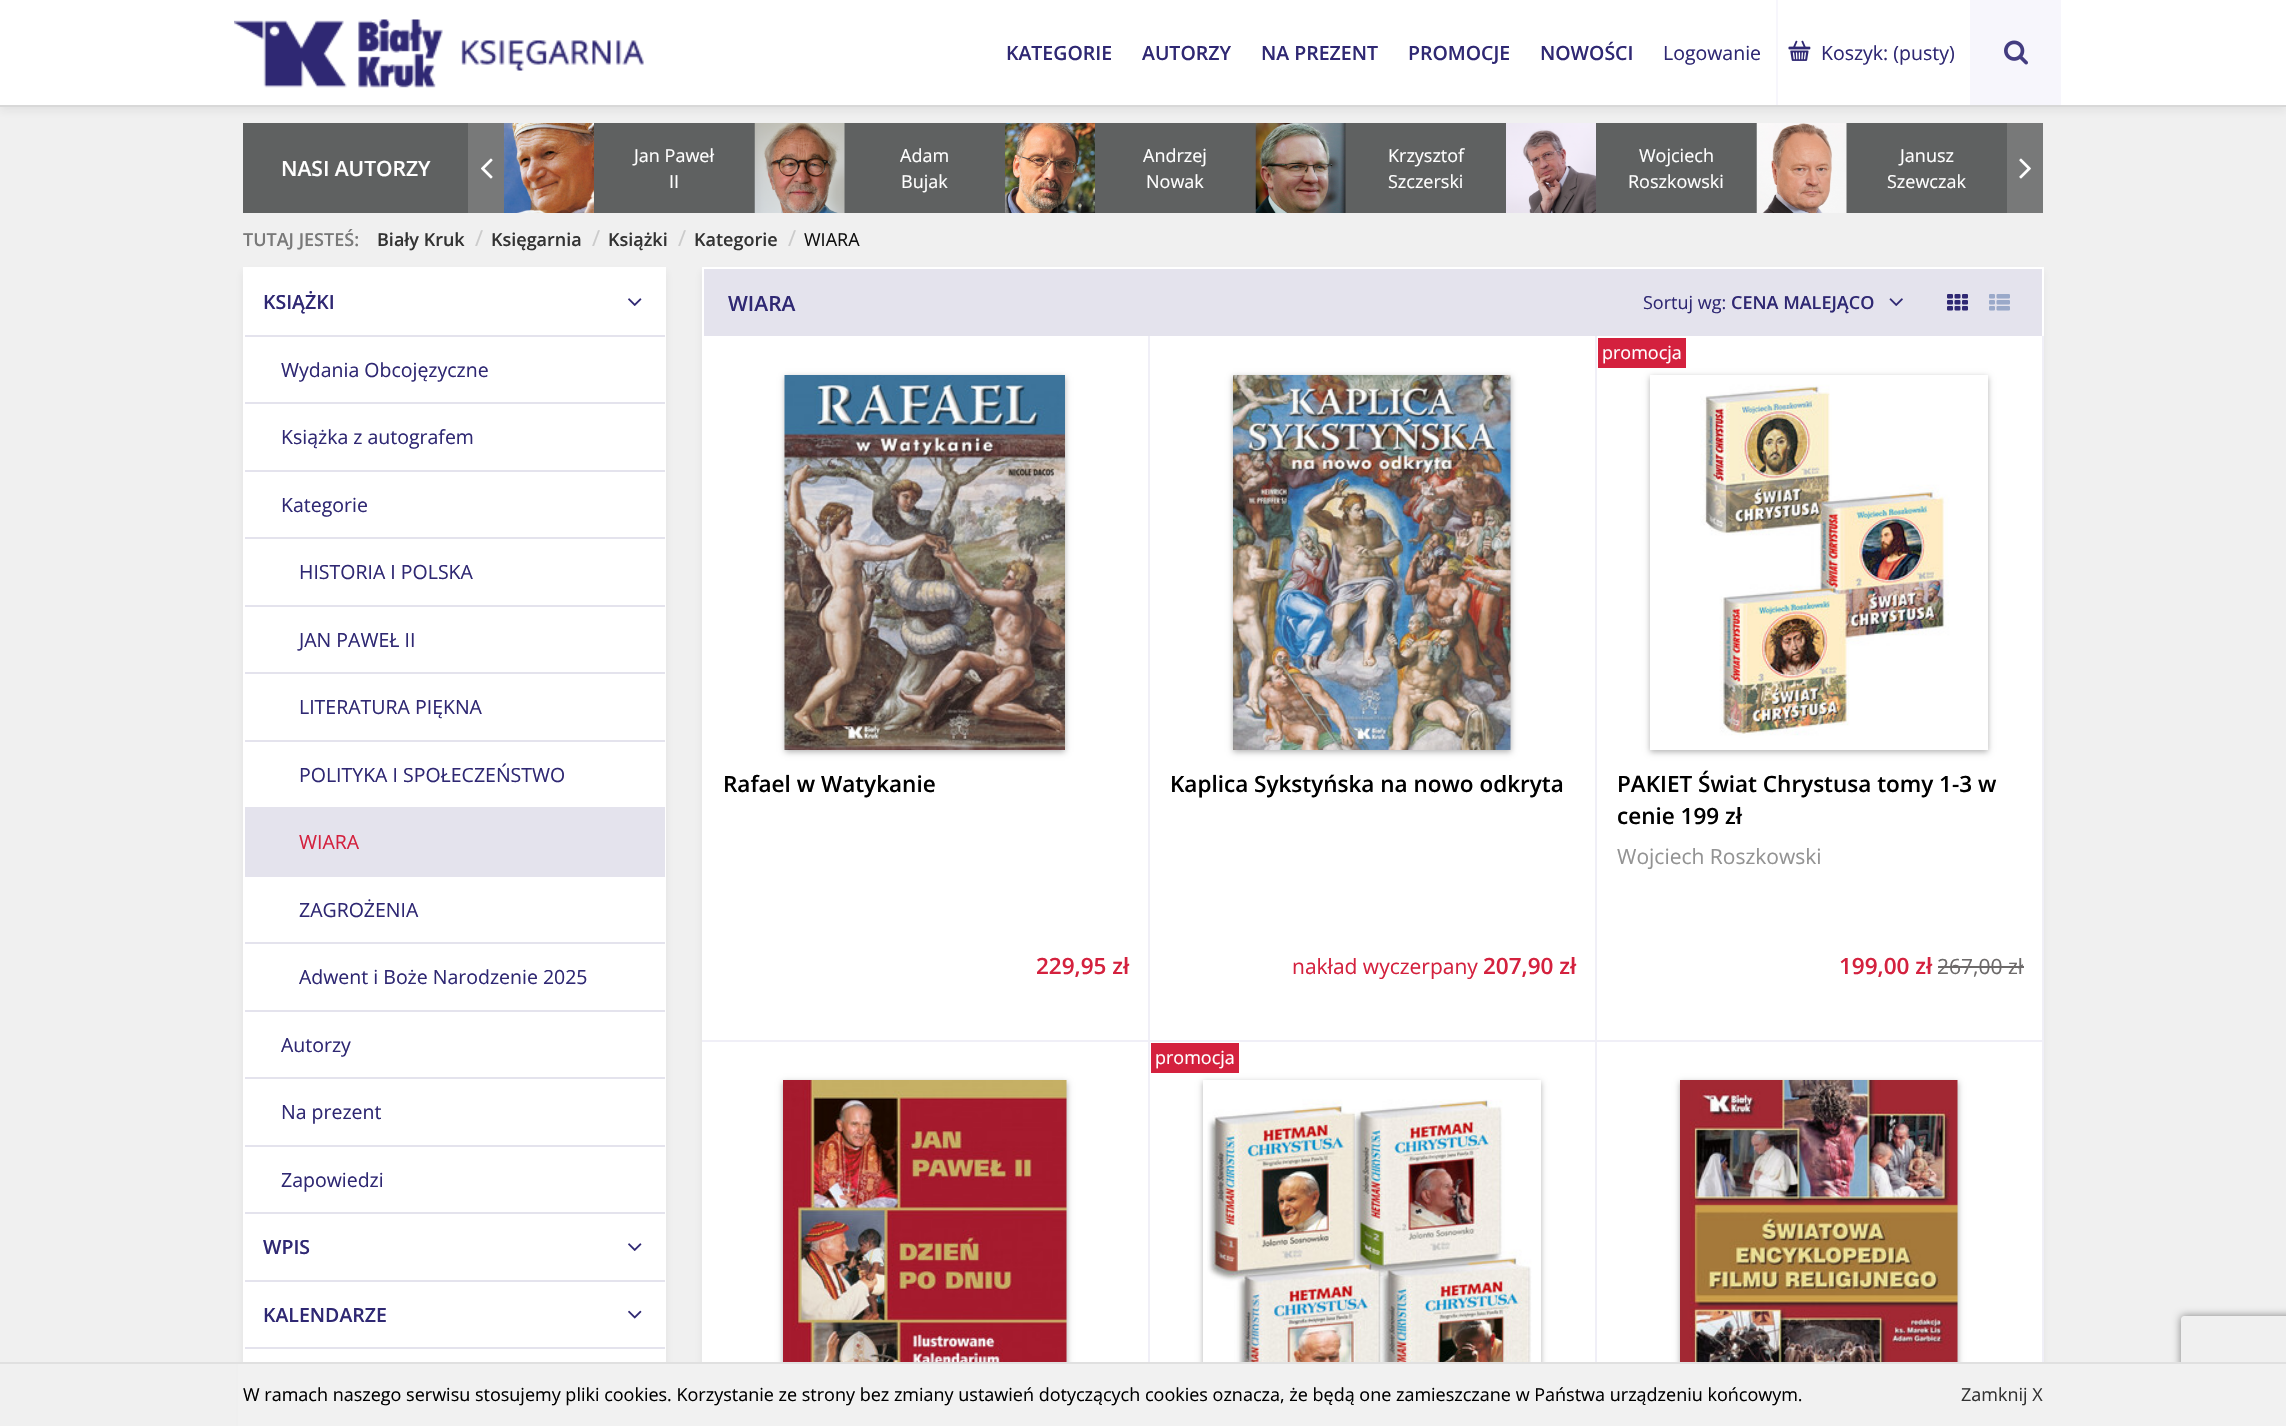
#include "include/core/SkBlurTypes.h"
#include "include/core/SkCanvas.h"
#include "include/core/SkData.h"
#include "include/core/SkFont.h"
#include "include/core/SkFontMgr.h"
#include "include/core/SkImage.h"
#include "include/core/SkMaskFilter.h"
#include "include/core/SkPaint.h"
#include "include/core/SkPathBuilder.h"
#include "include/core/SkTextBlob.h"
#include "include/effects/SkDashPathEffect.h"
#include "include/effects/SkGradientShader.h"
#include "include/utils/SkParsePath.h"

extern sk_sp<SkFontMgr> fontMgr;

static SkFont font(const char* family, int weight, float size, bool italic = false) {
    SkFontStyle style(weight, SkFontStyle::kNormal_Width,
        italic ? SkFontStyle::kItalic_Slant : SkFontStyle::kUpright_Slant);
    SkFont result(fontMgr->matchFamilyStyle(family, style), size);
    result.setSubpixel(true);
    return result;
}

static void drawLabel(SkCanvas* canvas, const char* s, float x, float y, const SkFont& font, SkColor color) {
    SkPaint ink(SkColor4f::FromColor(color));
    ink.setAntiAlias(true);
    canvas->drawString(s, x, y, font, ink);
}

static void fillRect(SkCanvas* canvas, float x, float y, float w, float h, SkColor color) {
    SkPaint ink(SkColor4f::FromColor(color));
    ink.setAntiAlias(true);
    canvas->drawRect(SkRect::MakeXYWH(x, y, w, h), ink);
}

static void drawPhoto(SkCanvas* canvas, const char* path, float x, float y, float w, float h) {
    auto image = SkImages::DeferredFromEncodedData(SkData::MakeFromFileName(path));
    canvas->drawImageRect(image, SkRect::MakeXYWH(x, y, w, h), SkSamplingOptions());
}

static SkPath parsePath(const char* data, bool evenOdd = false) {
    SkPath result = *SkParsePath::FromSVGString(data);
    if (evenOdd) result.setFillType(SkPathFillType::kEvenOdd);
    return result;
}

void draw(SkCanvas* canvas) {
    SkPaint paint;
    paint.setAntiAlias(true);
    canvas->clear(0xFFF0F0F0);
    fillRect(canvas, 243, 123, 225, 90, 0xFF5F6161);
    fillRect(canvas, 468, 123, 1575, 90, 0xFF787979);
    fillRect(canvas, 594, 123, 161, 90, 0xFF5F6161);
    drawPhoto(canvas, "assets/img5.png", 504, 123, 90, 90);
    fillRect(canvas, 844, 123, 161, 90, 0xFF5F6161);
    drawPhoto(canvas, "assets/img6.png", 754, 123, 91, 90);
    fillRect(canvas, 1095, 123, 161, 90, 0xFF5F6161);
    drawPhoto(canvas, "assets/img7.png", 1005, 123, 90, 90);
    fillRect(canvas, 1345, 123, 161, 90, 0xFF5F6161);
    drawPhoto(canvas, "assets/img8.png", 1255, 123, 91, 90);
    fillRect(canvas, 1596, 123, 161, 90, 0xFF5F6161);
    drawPhoto(canvas, "assets/img9.png", 1506, 123, 90, 90);
    fillRect(canvas, 1846, 123, 161, 90, 0xFF5F6161);
    drawPhoto(canvas, "assets/img10.png", 1756, 123, 91, 90);
    paint.setColor(0x14323232);
    paint.setMaskFilter(SkMaskFilter::MakeBlur(kNormal_SkBlurStyle, 4));
    canvas->drawRect(SkRect::MakeXYWH(0, 5, 2286, 106), paint);
    paint.setMaskFilter(nullptr);
    fillRect(canvas, 0, 0, 2286, 105, 0xFFFFFFFF);
    fillRect(canvas, 0, 105, 2286, 2, 0xFFD8D8D8);
    drawPhoto(canvas, "assets/img1.png", 234, 19, 209, 69);
    drawPhoto(canvas, "assets/img2.png", 461, 40, 183, 31);
    SkFont font1 = font("Open Sans", 600, 19.5f);
    drawLabel(canvas, "KATEGORIE", 1006, 60, font1, 0xFF2F2873);
    drawLabel(canvas, "AUTORZY", 1142, 60, font1, 0xFF2F2873);
    drawLabel(canvas, "NA PREZENT", 1261, 60, font1, 0xFF2F2873);
    drawLabel(canvas, "PROMOCJE", 1408, 60, font1, 0xFF2F2873);
    drawLabel(canvas, "NOWOŚCI", 1540, 60, font1, 0xFF2F2873);
    SkFont font2 = font("Open Sans", 400, 19.5f);
    drawLabel(canvas, "Logowanie", 1663, 60, font2, 0xFF2F2873);
    fillRect(canvas, 1776, 0, 2, 105, 0xFFF7F6FC);
    drawPhoto(canvas, "assets/img3.png", 1788, 40, 23, 21);
    drawLabel(canvas, "Koszyk: (pusty)", 1821, 60, font2, 0xFF2F2873);
    fillRect(canvas, 1970, 0, 91, 105, 0xFFF7F6FC);
    drawPhoto(canvas, "assets/img4.png", 2004, 40, 24, 25);
    SkFont font3 = font("Open Sans", 600, 21);
    drawLabel(canvas, "NASI AUTORZY", 281, 176, font3, 0xFFFFFFFF);
    SkFont font4 = font("Open Sans", 400, 18);
    drawLabel(canvas, "Jan Paweł", 634, 162, font4, 0xFFFFFFFF);
    drawLabel(canvas, "II", 669, 188, font4, 0xFFFFFFFF);
    drawLabel(canvas, "Adam", 900, 162, font4, 0xFFFFFFFF);
    drawLabel(canvas, "Bujak", 901, 188, font4, 0xFFFFFFFF);
    drawLabel(canvas, "Andrzej", 1143, 162, font4, 0xFFFFFFFF);
    drawLabel(canvas, "Nowak", 1146, 188, font4, 0xFFFFFFFF);
    drawLabel(canvas, "Krzysztof", 1388, 162, font4, 0xFFFFFFFF);
    drawLabel(canvas, "Szczerski", 1388, 188, font4, 0xFFFFFFFF);
    drawLabel(canvas, "Wojciech", 1639, 162, font4, 0xFFFFFFFF);
    drawLabel(canvas, "Roszkowski", 1628, 188, font4, 0xFFFFFFFF);
    drawLabel(canvas, "Janusz", 1900, 162, font4, 0xFFFFFFFF);
    drawLabel(canvas, "Szewczak", 1887, 188, font4, 0xFFFFFFFF);
    drawPhoto(canvas, "assets/img11.png", 481, 158, 12, 21);
    drawPhoto(canvas, "assets/img12.png", 2019, 158, 12, 21);
    SkFont font5 = font("Open Sans", 600, 18);
    drawLabel(canvas, "TUTAJ JESTEŚ:", 243, 246, font5, 0xFF797979);
    drawLabel(canvas, "Biały Kruk", 377, 246, font5, 0xFF333333);
    SkFont font6 = font("Open Sans", 400, 22);
    drawLabel(canvas, "/", 475, 246, font6, 0xFFCBCBCB);
    drawLabel(canvas, "Księgarnia", 491, 246, font5, 0xFF333333);
    drawLabel(canvas, "/", 592, 246, font6, 0xFFCBCBCB);
    drawLabel(canvas, "Książki", 608, 246, font5, 0xFF333333);
    drawLabel(canvas, "/", 678, 246, font6, 0xFFCBCBCB);
    drawLabel(canvas, "Kategorie", 694, 246, font5, 0xFF333333);
    drawLabel(canvas, "/", 788, 246, font6, 0xFFCBCBCB);
    drawLabel(canvas, "WIARA", 804, 246, font4, 0xFF111111);
    paint.setMaskFilter(SkMaskFilter::MakeBlur(kNormal_SkBlurStyle, 4));
    canvas->drawRect(SkRect::MakeXYWH(243, 272, 423, 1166), paint);
    paint.setMaskFilter(nullptr);
    fillRect(canvas, 243, 267, 423, 1095, 0xFFFFFFFF);
    fillRect(canvas, 245, 1212, 420, 2, 0xFFE4E3ED);
    drawLabel(canvas, "KSIĄŻKI", 263, 309, font1, 0xFF2F2873);
    drawPhoto(canvas, "assets/img13.png", 628, 298, 14, 8);
    fillRect(canvas, 245, 335, 420, 2, 0xFFE4E3ED);
    drawLabel(canvas, "Wydania Obcojęzyczne", 281, 377, font2, 0xFF2F2873);
    fillRect(canvas, 245, 402, 420, 2, 0xFFE4E3ED);
    drawLabel(canvas, "Książka z autografem", 281, 444, font2, 0xFF2F2873);
    fillRect(canvas, 245, 470, 420, 2, 0xFFE4E3ED);
    drawLabel(canvas, "Kategorie", 281, 512, font2, 0xFF2F2873);
    fillRect(canvas, 245, 537, 420, 2, 0xFFE4E3ED);
    drawLabel(canvas, "HISTORIA I POLSKA", 299, 579, font2, 0xFF2F2873);
    fillRect(canvas, 245, 605, 420, 2, 0xFFE4E3ED);
    drawLabel(canvas, "JAN PAWEŁ II", 299, 647, font2, 0xFF2F2873);
    fillRect(canvas, 245, 672, 420, 2, 0xFFE4E3ED);
    drawLabel(canvas, "LITERATURA PIĘKNA", 299, 714, font2, 0xFF2F2873);
    fillRect(canvas, 245, 740, 420, 2, 0xFFE4E3ED);
    drawLabel(canvas, "POLITYKA I SPOŁECZEŃSTWO", 299, 782, font2, 0xFF2F2873);
    fillRect(canvas, 245, 807, 420, 70, 0xFFE4E3ED);
    drawLabel(canvas, "WIARA", 299, 849, font2, 0xFFD4213E);
    drawLabel(canvas, "ZAGROŻENIA", 299, 917, font2, 0xFF2F2873);
    fillRect(canvas, 245, 942, 420, 2, 0xFFE4E3ED);
    drawLabel(canvas, "Adwent i Boże Narodzenie 2025", 299, 984, font2, 0xFF2F2873);
    fillRect(canvas, 245, 1010, 420, 2, 0xFFE4E3ED);
    drawLabel(canvas, "Autorzy", 281, 1052, font2, 0xFF2F2873);
    fillRect(canvas, 245, 1077, 420, 2, 0xFFE4E3ED);
    drawLabel(canvas, "Na prezent", 281, 1119, font2, 0xFF2F2873);
    fillRect(canvas, 245, 1145, 420, 2, 0xFFE4E3ED);
    drawLabel(canvas, "Zapowiedzi", 281, 1187, font2, 0xFF2F2873);
    fillRect(canvas, 245, 1280, 420, 2, 0xFFE4E3ED);
    drawLabel(canvas, "WPIS", 263, 1254, font1, 0xFF2F2873);
    drawPhoto(canvas, "assets/img13.png", 628, 1243, 14, 8);
    fillRect(canvas, 245, 1347, 420, 2, 0xFFE4E3ED);
    drawLabel(canvas, "KALENDARZE", 263, 1322, font1, 0xFF2F2873);
    drawPhoto(canvas, "assets/img14.png", 628, 1310, 14, 9);
    paint.setMaskFilter(SkMaskFilter::MakeBlur(kNormal_SkBlurStyle, 4));
    canvas->drawRect(SkRect::MakeXYWH(702, 272, 1341, 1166), paint);
    paint.setMaskFilter(nullptr);
    fillRect(canvas, 702, 336, 1340, 1026, 0xFFFFFFFF);
    fillRect(canvas, 704, 269, 1338, 67, 0xFFE4E3ED);
    fillRect(canvas, 702, 267, 1341, 2, 0xFFFFFFFF);
    fillRect(canvas, 2042, 267, 2, 69, 0xFFFFFFFF);
    fillRect(canvas, 702, 267, 2, 69, 0xFFFFFFFF);
    drawLabel(canvas, "WIARA", 728, 311, font3, 0xFF2F2873);
    drawLabel(canvas, "Sortuj wg:", 1643, 309, font4, 0xFF2F2873);
    drawLabel(canvas, "CENA MALEJĄCO", 1731, 309, font5, 0xFF2F2873);
    drawPhoto(canvas, "assets/img15.png", 1889, 298, 14, 8);
    drawPhoto(canvas, "assets/img16.png", 1947, 294, 21, 17);
    drawPhoto(canvas, "assets/img17.png", 1989, 294, 21, 17);
    fillRect(canvas, 1148, 336, 2, 705, 0xFFF0EFF7);
    fillRect(canvas, 702, 1040, 447, 2, 0xFFF0EFF7);
    paint.setColor(0x4D000000);
    paint.setMaskFilter(SkMaskFilter::MakeBlur(kNormal_SkBlurStyle, 3));
    canvas->drawRect(SkRect::MakeXYWH(785, 377, 280, 375), paint);
    paint.setMaskFilter(nullptr);
    drawPhoto(canvas, "assets/img18.png", 784, 375, 281, 375);
    SkFont font7 = font("Open Sans", 600, 22.5f);
    drawLabel(canvas, "Rafael w Watykanie", 723, 792, font7, 0xFF000000);
    drawLabel(canvas, "229,95 zł", 1036, 974, font7, 0xFFD4213E);
    fillRect(canvas, 1595, 336, 2, 705, 0xFFF0EFF7);
    fillRect(canvas, 1149, 1040, 447, 2, 0xFFF0EFF7);
    paint.setMaskFilter(SkMaskFilter::MakeBlur(kNormal_SkBlurStyle, 3));
    canvas->drawRect(SkRect::MakeXYWH(1233, 377, 278, 375), paint);
    paint.setMaskFilter(nullptr);
    drawPhoto(canvas, "assets/img19.png", 1233, 375, 278, 375);
    drawLabel(canvas, "Kaplica Sykstyńska na nowo odkryta", 1170, 792, font7, 0xFF000000);
    SkFont font8 = font("Open Sans", 400, 21);
    drawLabel(canvas, "nakład wyczerpany", 1292, 974, font8, 0xFFD4213E);
    drawLabel(canvas, "207,90 zł", 1483, 974, font7, 0xFFD4213E);
    fillRect(canvas, 2042, 336, 2, 705, 0xFFF0EFF7);
    fillRect(canvas, 1596, 1040, 447, 2, 0xFFF0EFF7);
    canvas->save();
    canvas->clipPath(parsePath("M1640 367H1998V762H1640ZM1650 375H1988V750H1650Z", true), true);
    paint.setMaskFilter(SkMaskFilter::MakeBlur(kNormal_SkBlurStyle, 3));
    canvas->drawRect(SkRect::MakeXYWH(1650, 377, 338, 375), paint);
    paint.setMaskFilter(nullptr);
    canvas->restore();
    fillRect(canvas, 1598, 338, 88, 30, 0xFFD4213E);
    drawLabel(canvas, "promocja", 1602, 359, font4, 0xFFFFFFFF);
    drawPhoto(canvas, "assets/img20.png", 1700, 376, 288, 374);
    drawLabel(canvas, "PAKIET Świat Chrystusa tomy 1-3 w", 1617, 792, font7, 0xFF000000);
    drawLabel(canvas, "cenie 199 zł", 1617, 824, font7, 0xFF000000);
    drawLabel(canvas, "Wojciech Roszkowski", 1617, 864, font8, 0xFF939393);
    drawLabel(canvas, "199,00 zł", 1839, 974, font7, 0xFFD4213E);
    drawLabel(canvas, "267,00 zł", 1937, 974, font8, 0xFF6D6A6A);
    fillRect(canvas, 1938, 966, 86, 2, 0xFF6D6A6A);
    fillRect(canvas, 1148, 1041, 2, 321, 0xFFF0EFF7);
    paint.setMaskFilter(SkMaskFilter::MakeBlur(kNormal_SkBlurStyle, 3));
    canvas->drawRect(SkRect::MakeXYWH(783, 1082, 284, 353), paint);
    paint.setMaskFilter(nullptr);
    drawPhoto(canvas, "assets/img21.png", 783, 1080, 284, 282);
    fillRect(canvas, 1595, 1041, 2, 321, 0xFFF0EFF7);
    canvas->save();
    canvas->clipPath(parsePath("M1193 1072H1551V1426H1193ZM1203 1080H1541V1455H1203Z", true), true);
    paint.setMaskFilter(SkMaskFilter::MakeBlur(kNormal_SkBlurStyle, 3));
    canvas->drawRect(SkRect::MakeXYWH(1203, 1082, 338, 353), paint);
    paint.setMaskFilter(nullptr);
    canvas->restore();
    fillRect(canvas, 1151, 1043, 88, 30, 0xFFD4213E);
    drawLabel(canvas, "promocja", 1155, 1064, font4, 0xFFFFFFFF);
    drawPhoto(canvas, "assets/img22.png", 1207, 1081, 334, 281);
    fillRect(canvas, 2042, 1041, 2, 321, 0xFFF0EFF7);
    paint.setMaskFilter(SkMaskFilter::MakeBlur(kNormal_SkBlurStyle, 3));
    canvas->drawRect(SkRect::MakeXYWH(1680, 1082, 278, 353), paint);
    paint.setMaskFilter(nullptr);
    drawPhoto(canvas, "assets/img23.png", 1680, 1080, 278, 282);
    canvas->save();
    canvas->clipPath(parsePath("M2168 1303H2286V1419H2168ZM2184 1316H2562C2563.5 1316 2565 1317.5 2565 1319V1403C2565 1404.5 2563.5 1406 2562 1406H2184C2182.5 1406 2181 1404.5 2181 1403V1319C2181 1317.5 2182.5 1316 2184 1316Z", true), true);
    paint.setColor(0xFF808080);
    paint.setMaskFilter(SkMaskFilter::MakeBlur(kNormal_SkBlurStyle, 4));
    canvas->drawRoundRect(SkRect::MakeXYWH(2181, 1316, 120, 90), 3, 3, paint);
    paint.setMaskFilter(nullptr);
    canvas->restore();
    fillRect(canvas, 238, 1364, 2048, 62, 0xFFF1F1F1);
    fillRect(canvas, 0, 1362, 2286, 2, 0xFFE0E0E0);
    drawLabel(canvas, "W ramach naszego serwisu stosujemy pliki cookies. Korzystanie ze strony bez zmiany ustawień dotyczących cookies oznacza, że będą one zamieszczane w Państwa urządzeniu końcowym.", 243, 1401, font4, 0xFF000000);
    drawLabel(canvas, "Zamknij X", 1961, 1401, font4, 0xFF333333);
}
